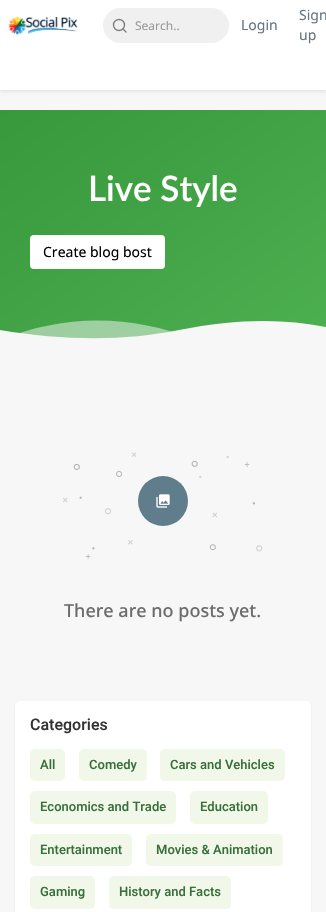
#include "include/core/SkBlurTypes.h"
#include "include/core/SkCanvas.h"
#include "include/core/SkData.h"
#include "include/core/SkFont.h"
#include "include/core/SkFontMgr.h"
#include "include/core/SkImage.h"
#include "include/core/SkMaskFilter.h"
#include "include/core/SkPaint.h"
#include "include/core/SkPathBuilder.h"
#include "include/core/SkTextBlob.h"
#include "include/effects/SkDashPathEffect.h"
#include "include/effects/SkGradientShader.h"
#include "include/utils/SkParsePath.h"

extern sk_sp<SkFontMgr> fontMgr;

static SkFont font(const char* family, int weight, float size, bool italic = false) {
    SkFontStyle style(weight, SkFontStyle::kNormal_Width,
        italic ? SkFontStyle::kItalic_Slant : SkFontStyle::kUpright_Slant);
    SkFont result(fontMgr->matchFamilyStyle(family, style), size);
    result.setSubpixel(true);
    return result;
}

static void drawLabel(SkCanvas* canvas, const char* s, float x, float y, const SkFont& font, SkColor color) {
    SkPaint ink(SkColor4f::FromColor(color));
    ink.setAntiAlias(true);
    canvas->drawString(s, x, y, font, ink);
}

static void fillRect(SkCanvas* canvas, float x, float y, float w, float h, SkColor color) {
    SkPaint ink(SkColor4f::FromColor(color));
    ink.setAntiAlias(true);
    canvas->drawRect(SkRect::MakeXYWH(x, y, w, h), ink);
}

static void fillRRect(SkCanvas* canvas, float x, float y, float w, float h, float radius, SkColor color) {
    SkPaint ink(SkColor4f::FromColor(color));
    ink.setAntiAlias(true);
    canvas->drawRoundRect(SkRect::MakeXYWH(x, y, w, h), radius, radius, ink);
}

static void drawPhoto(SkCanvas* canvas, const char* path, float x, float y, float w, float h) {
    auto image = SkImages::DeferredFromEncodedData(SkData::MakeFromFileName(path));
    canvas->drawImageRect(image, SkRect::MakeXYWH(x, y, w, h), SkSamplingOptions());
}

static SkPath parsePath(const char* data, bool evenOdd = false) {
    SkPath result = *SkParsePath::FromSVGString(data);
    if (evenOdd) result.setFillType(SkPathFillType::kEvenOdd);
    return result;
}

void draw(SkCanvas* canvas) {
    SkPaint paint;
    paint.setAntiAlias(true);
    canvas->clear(0xFFF7F7F7);
    paint.setColor(0x1A000000);
    paint.setMaskFilter(SkMaskFilter::MakeBlur(kNormal_SkBlurStyle, 2));
    canvas->drawRect(SkRect::MakeXYWH(0, 1, 326, 90), paint);
    paint.setMaskFilter(nullptr);
    fillRect(canvas, 0, 0, 326, 90, 0xFFFFFFFF);
    drawPhoto(canvas, "assets/img1.png", 8, 16, 70, 19);
    fillRRect(canvas, 103, 8, 126, 35, 17.5f, 0xFFF0F0F0);
    paint.setStroke(true);
    paint.setStrokeWidth(1.4f);
    paint.setColor(0xFF7E7E7E);
    canvas->drawCircle(119, 25, 5.5f, paint);
    paint.setStrokeCap(SkPaint::kRound_Cap);
    paint.setStrokeJoin(SkPaint::kRound_Join);
    canvas->drawPath(parsePath("M126 32L123 29"), paint);
    SkFont font1 = font("Noto Sans", 400, 12);
    drawLabel(canvas, "Search..", 135, 30, font1, 0xFF999999);
    SkFont font2 = font("Noto Sans", 400, 14);
    drawLabel(canvas, "Login", 241, 30, font2, 0xFF66757F);
    drawLabel(canvas, "Sign", 299, 20, font2, 0xFF66757F);
    drawLabel(canvas, "up", 299, 40, font2, 0xFF66757F);
    paint.setStroke(false);
    {
        const SkColor colors[] = {0xFF38983C, 0xFF4CAF50};
        const float stops[] = {0, 1};
        const SkPoint ends[] = {{55, 71}, {271, 379}};
        paint.setShader(SkGradientShader::MakeLinear(ends, colors, stops, 2, SkTileMode::kClamp));
        paint.setAlpha(255);
    }
    canvas->drawRect(SkRect::MakeXYWH(0, 110, 326, 229), paint);
    SkFont font3 = font("Lato", 600, 35);
    drawLabel(canvas, "Live Style", 88, 201, font3, 0xFFFFFFFF);
    fillRRect(canvas, 30, 235, 135, 34, 4, 0xFFFFFFFF);
    drawLabel(canvas, "Create blog bost", 43, 257, font2, 0xFF000000);
    canvas->save();
    canvas->clipRect(SkRect::MakeXYWH(0, 291, 326, 49));
    paint.setShader(nullptr);
    paint.setColor(0x80F7F7F7);
    canvas->drawPath(parsePath("M0 389V340C65 314 130 314 196 340V389Z"), paint);
    paint.setColor(0xFFF7F7F7);
    canvas->drawPath(parsePath("M0 389V330C65 341 125 341 179 330C234 319 282 318 326 327V389Z"), paint);
    canvas->restore();
    paint.setColor(0xFF607D8B);
    canvas->drawCircle(163, 501, 25, paint);
    drawPhoto(canvas, "assets/img3.png", 156, 494, 14, 14);
    drawPhoto(canvas, "assets/img2.png", 63, 452, 200, 107);
    SkFont font4 = font("Noto Sans", 500, 18);
    drawLabel(canvas, "There are no posts yet.", 64, 617, font4, 0xFF6D6D6D);
    paint.setColor(0x12000000);
    paint.setMaskFilter(SkMaskFilter::MakeBlur(kNormal_SkBlurStyle, 1));
    canvas->drawRoundRect(SkRect::MakeXYWH(15, 702, 296, 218), 5, 5, paint);
    paint.setMaskFilter(nullptr);
    fillRRect(canvas, 15, 701, 296, 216, 5, 0xFFFFFFFF);
    SkFont font5 = font("Roboto", 500, 16);
    drawLabel(canvas, "Categories", 30, 730, font5, 0xFF333333);
    fillRRect(canvas, 30, 749, 35, 32, 5, 0xFFF1F8E9);
    SkFont font6 = font("Roboto", 500, 13);
    drawLabel(canvas, "All", 40, 769, font6, 0xFF386F3B);
    fillRRect(canvas, 79, 749, 68, 32, 5, 0xFFF1F8E9);
    drawLabel(canvas, "Comedy", 89, 769, font6, 0xFF386F3B);
    fillRRect(canvas, 160, 749, 125, 32, 5, 0xFFF1F8E9);
    drawLabel(canvas, "Cars and Vehicles", 170, 769, font6, 0xFF386F3B);
    fillRRect(canvas, 30, 791, 146, 33, 5, 0xFFF1F8E9);
    drawLabel(canvas, "Economics and Trade", 40, 811, font6, 0xFF386F3B);
    fillRRect(canvas, 190, 791, 78, 33, 5, 0xFFF1F8E9);
    drawLabel(canvas, "Education", 200, 811, font6, 0xFF386F3B);
    fillRRect(canvas, 30, 834, 102, 32, 5, 0xFFF1F8E9);
    drawLabel(canvas, "Entertainment", 40, 854, font6, 0xFF386F3B);
    fillRRect(canvas, 146, 834, 137, 32, 5, 0xFFF1F8E9);
    drawLabel(canvas, "Movies & Animation", 156, 854, font6, 0xFF386F3B);
    fillRRect(canvas, 30, 876, 65, 33, 5, 0xFFF1F8E9);
    drawLabel(canvas, "Gaming", 40, 896, font6, 0xFF386F3B);
    fillRRect(canvas, 109, 876, 122, 33, 5, 0xFFF1F8E9);
    drawLabel(canvas, "History and Facts", 119, 896, font6, 0xFF386F3B);
}
